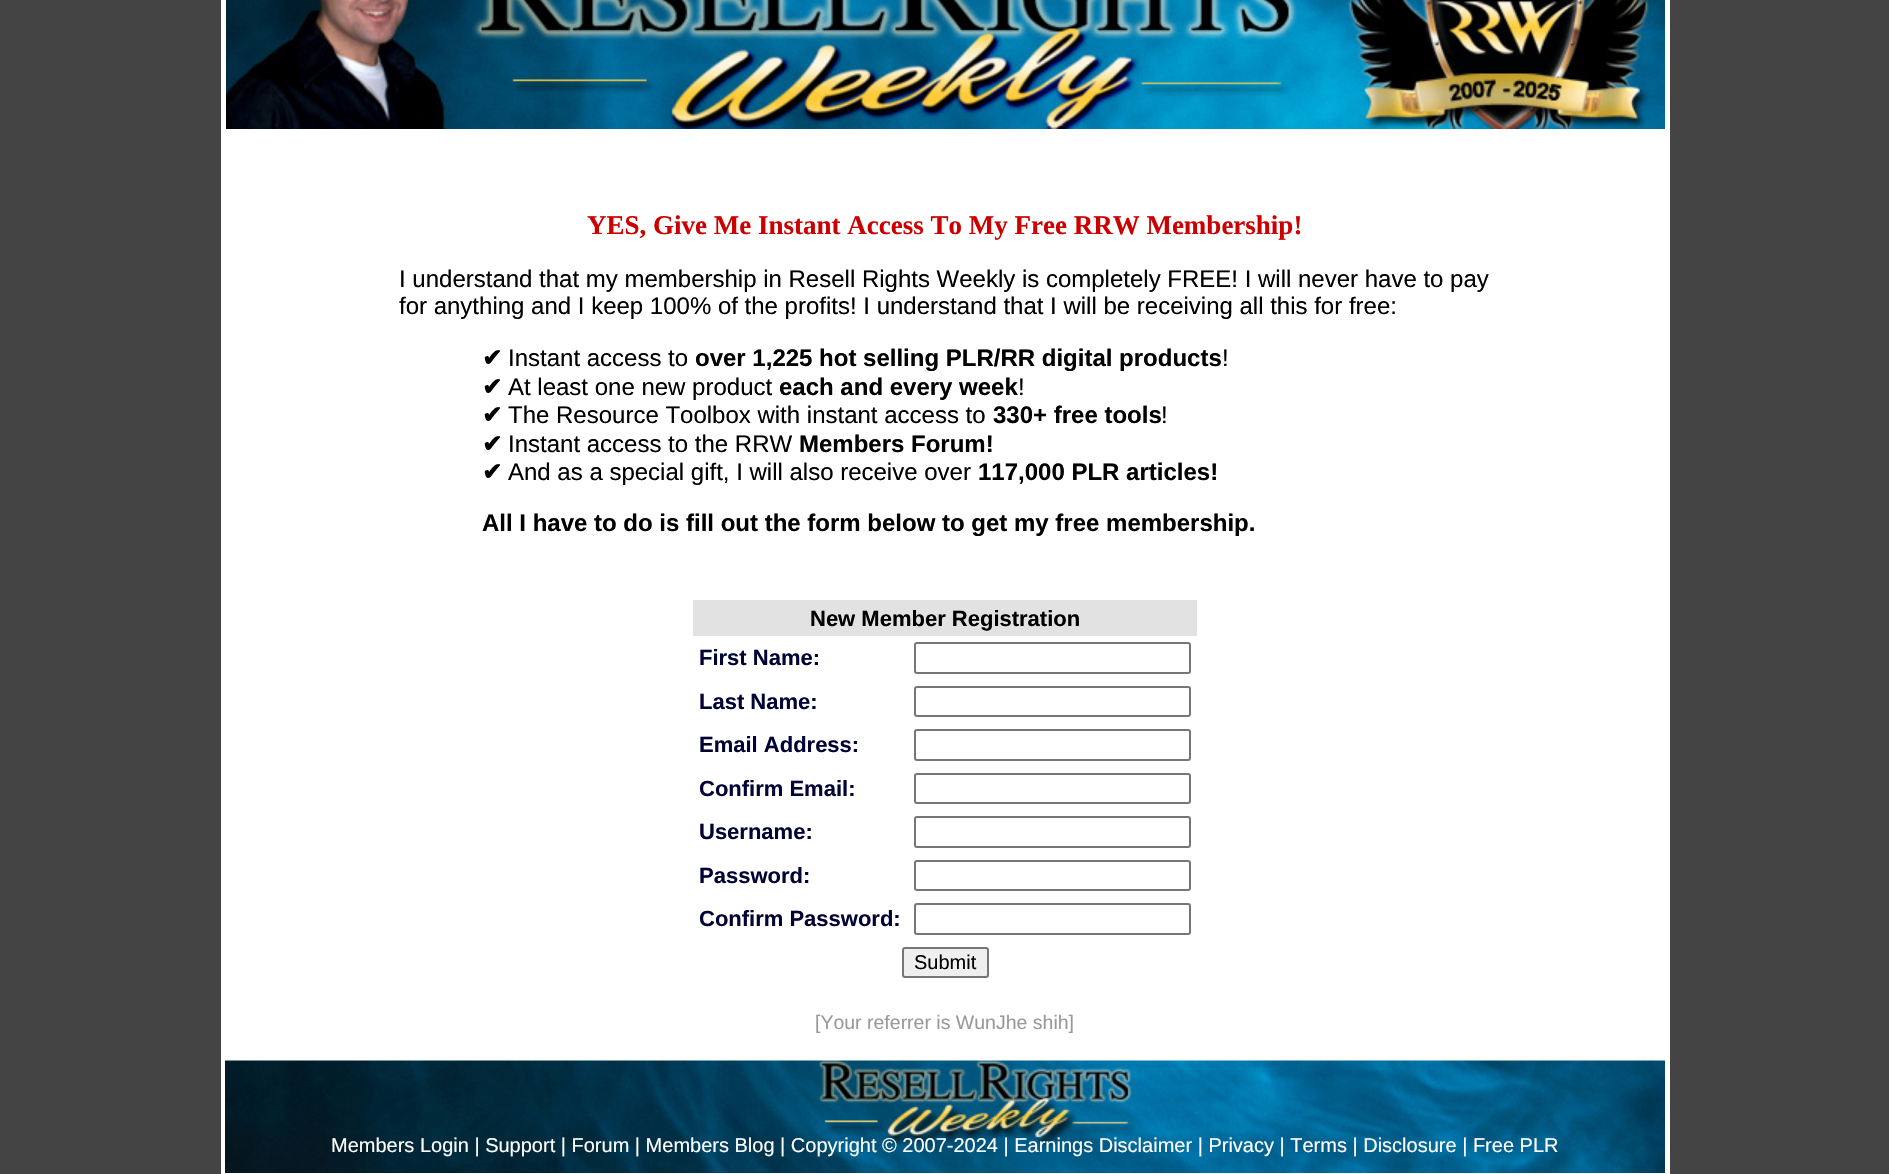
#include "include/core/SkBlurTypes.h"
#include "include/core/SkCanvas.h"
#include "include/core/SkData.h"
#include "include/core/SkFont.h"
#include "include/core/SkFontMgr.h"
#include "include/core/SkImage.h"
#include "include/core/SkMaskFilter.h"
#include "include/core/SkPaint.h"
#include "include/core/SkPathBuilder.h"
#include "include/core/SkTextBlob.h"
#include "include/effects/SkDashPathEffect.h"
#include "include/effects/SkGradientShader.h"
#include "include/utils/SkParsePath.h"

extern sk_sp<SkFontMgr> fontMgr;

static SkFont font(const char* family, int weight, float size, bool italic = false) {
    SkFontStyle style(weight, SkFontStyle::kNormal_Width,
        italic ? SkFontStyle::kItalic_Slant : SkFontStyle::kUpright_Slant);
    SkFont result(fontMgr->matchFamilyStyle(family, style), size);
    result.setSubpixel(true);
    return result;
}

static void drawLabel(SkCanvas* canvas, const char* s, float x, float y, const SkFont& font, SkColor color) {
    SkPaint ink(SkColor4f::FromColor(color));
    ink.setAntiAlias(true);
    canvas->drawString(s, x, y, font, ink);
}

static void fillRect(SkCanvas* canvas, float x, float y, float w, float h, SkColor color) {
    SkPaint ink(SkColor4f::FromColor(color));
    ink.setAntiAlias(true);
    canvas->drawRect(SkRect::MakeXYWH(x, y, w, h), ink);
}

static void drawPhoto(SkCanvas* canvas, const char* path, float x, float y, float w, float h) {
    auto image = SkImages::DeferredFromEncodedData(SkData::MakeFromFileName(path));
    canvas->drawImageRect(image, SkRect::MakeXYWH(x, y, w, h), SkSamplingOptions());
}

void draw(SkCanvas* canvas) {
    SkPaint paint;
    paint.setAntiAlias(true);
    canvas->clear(0xFF444444);
    drawPhoto(canvas, "assets/img1.png", 226, 0, 1439, 129);
    fillRect(canvas, 1665, 0, 5, 129, 0xFFFFFFFF);
    fillRect(canvas, 221, 0, 5, 129, 0xFFFFFFFF);
    fillRect(canvas, 221, 129, 1449, 1045, 0xFFFFFFFF);
    SkFont font1 = font("Liberation Serif", 700, 27);
    drawLabel(canvas, "YES, Give Me Instant Access To My Free RRW Membership!", 587, 234, font1, 0xFFCC0000);
    SkFont font2 = font("Liberation Sans", 400, 24);
    drawLabel(canvas, "I understand that my membership in Resell Rights Weekly is completely FREE! I will never have to pay", 399, 287, font2, 0xFF000000);
    drawLabel(canvas, "for anything and I keep 100% of the profits! I understand that I will be receiving all this for free:", 399, 314, font2, 0xFF000000);
    SkFont font3 = font("DejaVu Sans", 700, 24);
    drawLabel(canvas, "✔", 482, 366, font3, 0xFF000000);
    drawLabel(canvas, "Instant access to", 508, 366, font2, 0xFF000000);
    SkFont font4 = font("Liberation Sans", 700, 24);
    drawLabel(canvas, "over 1,225 hot selling PLR/RR digital products", 695, 366, font4, 0xFF000000);
    drawLabel(canvas, "!", 1222, 366, font2, 0xFF000000);
    drawLabel(canvas, "✔", 482, 395, font3, 0xFF000000);
    drawLabel(canvas, "At least one new product", 508, 395, font2, 0xFF000000);
    drawLabel(canvas, "each and every week", 779, 395, font4, 0xFF000000);
    drawLabel(canvas, "!", 1018, 395, font2, 0xFF000000);
    drawLabel(canvas, "✔", 482, 423, font3, 0xFF000000);
    drawLabel(canvas, "The Resource Toolbox with instant access to", 508, 423, font2, 0xFF000000);
    drawLabel(canvas, "330+ free tools", 993, 423, font4, 0xFF000000);
    drawLabel(canvas, "!", 1161, 423, font2, 0xFF000000);
    drawLabel(canvas, "✔", 482, 452, font3, 0xFF000000);
    drawLabel(canvas, "Instant access to the RRW", 508, 452, font2, 0xFF000000);
    drawLabel(canvas, "Members Forum!", 799, 452, font4, 0xFF000000);
    drawLabel(canvas, "✔", 482, 480, font3, 0xFF000000);
    drawLabel(canvas, "And as a special gift, I will also receive over", 508, 480, font2, 0xFF000000);
    drawLabel(canvas, "117,000 PLR articles!", 978, 480, font4, 0xFF000000);
    drawLabel(canvas, "All I have to do is fill out the form below to get my free membership.", 482, 531, font4, 0xFF000000);
    fillRect(canvas, 693, 600, 504, 36, 0xFFE2E2E2);
    SkFont font5 = font("Liberation Sans", 700, 22);
    drawLabel(canvas, "New Member Registration", 810, 626, font5, 0xFF000000);
    drawLabel(canvas, "First Name:", 699, 665, font5, 0xFF000333);
    paint.setStroke(true);
    paint.setStrokeWidth(2);
    paint.setColor(0xFF767676);
    canvas->drawRoundRect(SkRect::MakeXYWH(915, 643, 275, 30), 2, 2, paint);
    drawLabel(canvas, "Last Name:", 699, 709, font5, 0xFF000333);
    canvas->drawRoundRect(SkRect::MakeXYWH(915, 687, 275, 29), 2, 2, paint);
    drawLabel(canvas, "Email Address:", 699, 752, font5, 0xFF000333);
    canvas->drawRoundRect(SkRect::MakeXYWH(915, 730, 275, 30), 2, 2, paint);
    drawLabel(canvas, "Confirm Email:", 699, 796, font5, 0xFF000333);
    canvas->drawRoundRect(SkRect::MakeXYWH(915, 774, 275, 29), 2, 2, paint);
    drawLabel(canvas, "Username:", 699, 839, font5, 0xFF000333);
    canvas->drawRoundRect(SkRect::MakeXYWH(915, 817, 275, 30), 2, 2, paint);
    drawLabel(canvas, "Password:", 699, 883, font5, 0xFF000333);
    canvas->drawRoundRect(SkRect::MakeXYWH(915, 861, 275, 29), 2, 2, paint);
    drawLabel(canvas, "Confirm Password:", 699, 926, font5, 0xFF000333);
    canvas->drawRoundRect(SkRect::MakeXYWH(915, 904, 275, 30), 2, 2, paint);
    paint.setStroke(false);
    paint.setColor(0xFFEFEFEF);
    canvas->drawRoundRect(SkRect::MakeXYWH(903, 948, 85, 29), 2, 2, paint);
    paint.setStroke(true);
    paint.setColor(0xFF767676);
    canvas->drawRoundRect(SkRect::MakeXYWH(903, 948, 85, 29), 2, 2, paint);
    SkFont font6 = font("Liberation Sans", 400, 20);
    drawLabel(canvas, "Submit", 914, 969, font6, 0xFF000000);
    SkFont font7 = font("Liberation Sans", 400, 19.5f);
    drawLabel(canvas, "[Your referrer is WunJhe shih]", 815, 1029, font7, 0xFF999999);
    drawPhoto(canvas, "assets/img2.png", 225, 1060, 1440, 113);
    drawLabel(canvas, "Members Login | Support | Forum | Members Blog | Copyright © 2007-2024 | Earnings Disclaimer | Privacy | Terms | Disclosure | Free PLR", 331, 1152, font6, 0xFFFFFFFF);
}
